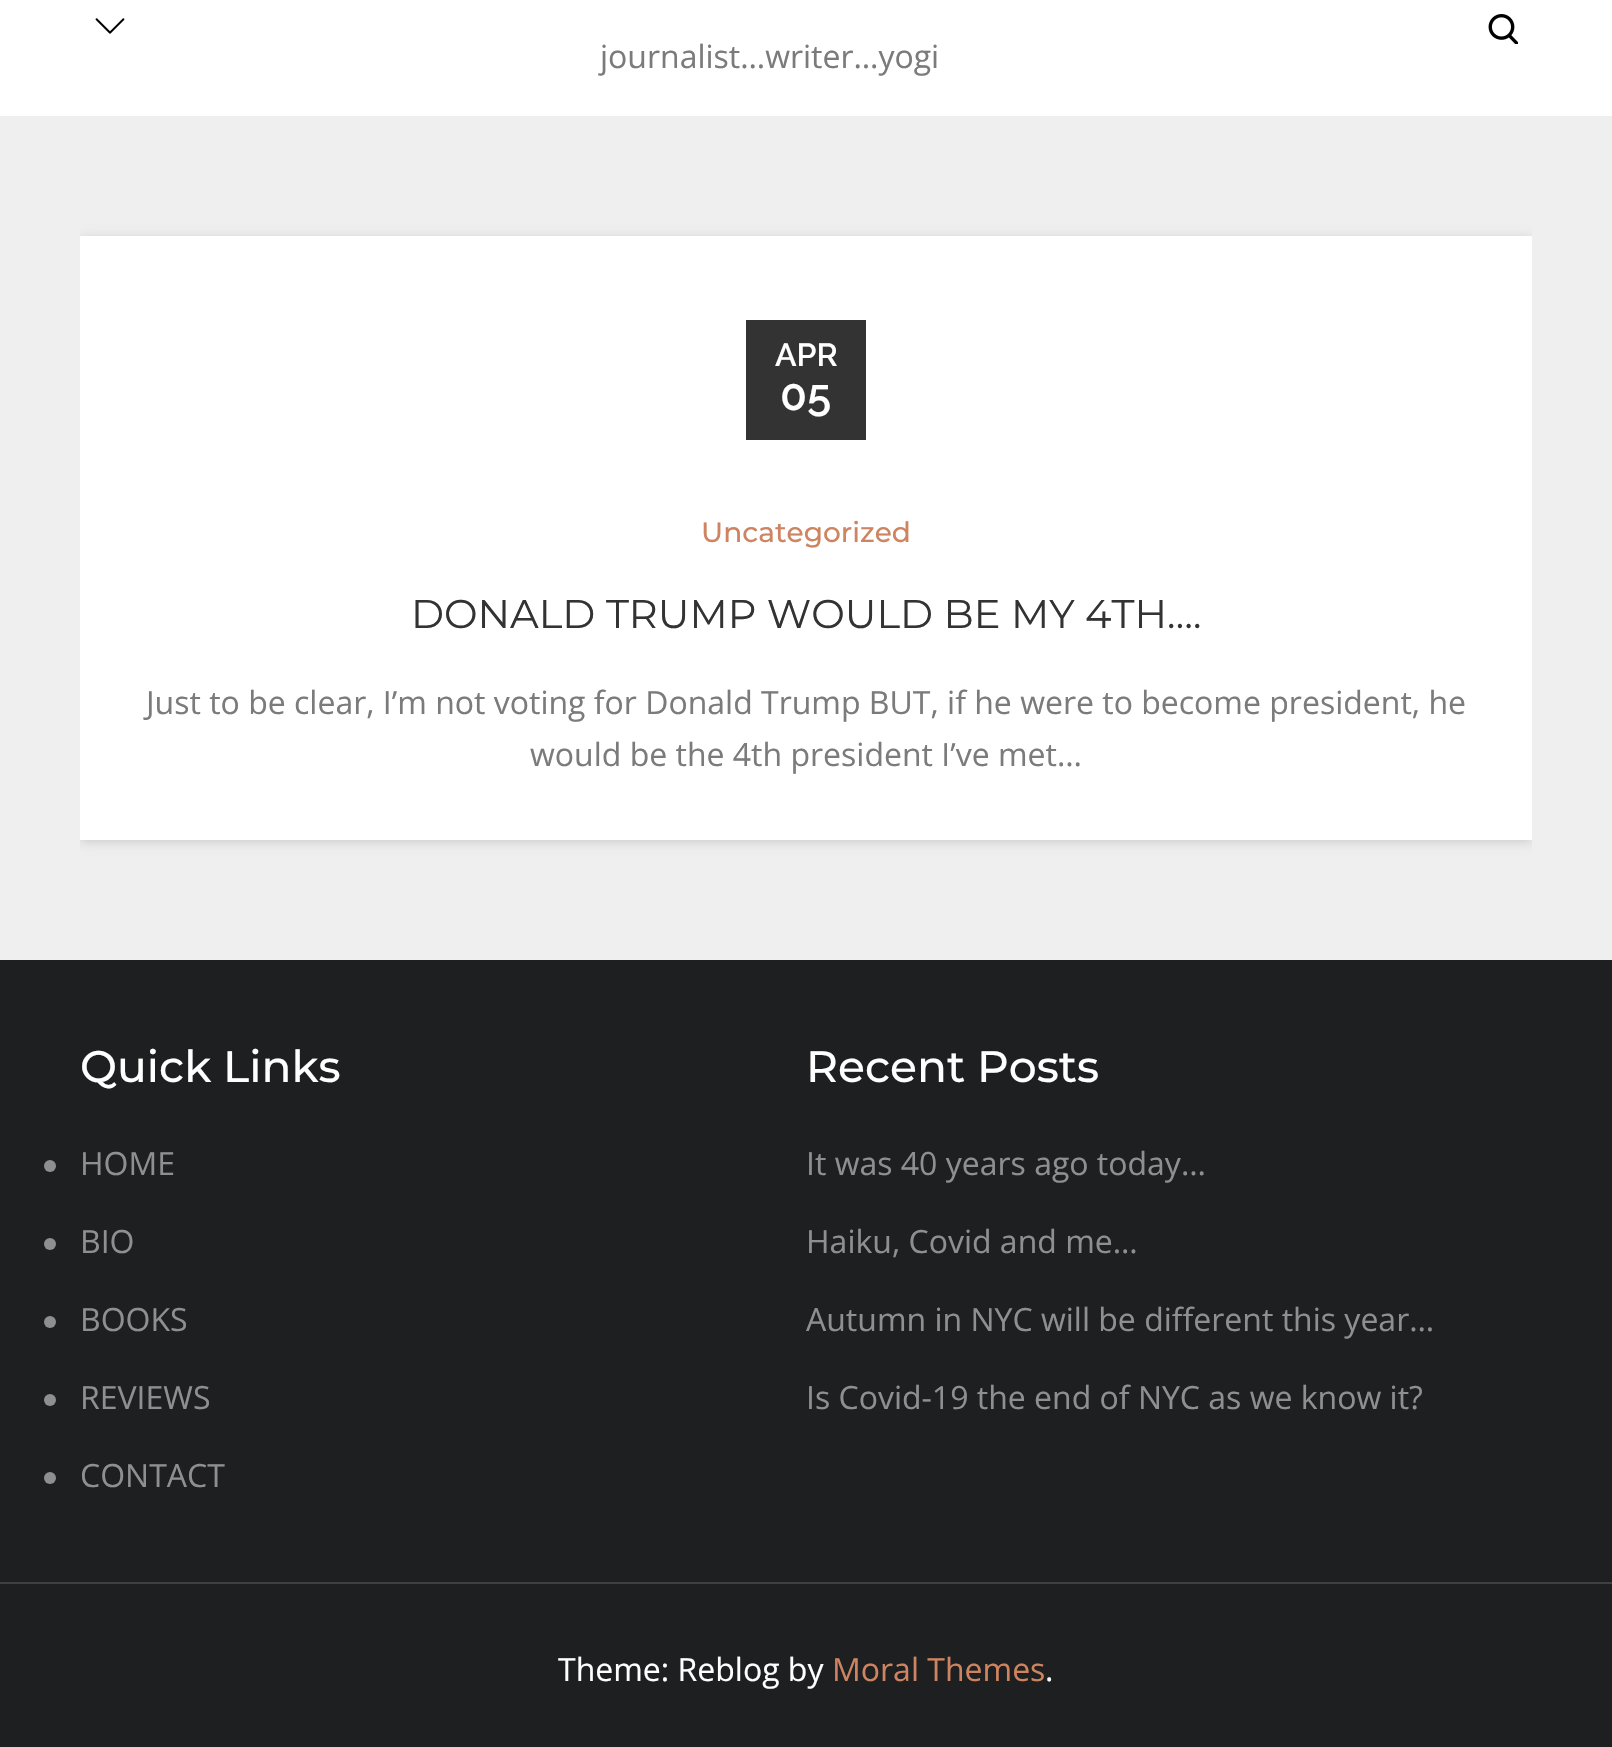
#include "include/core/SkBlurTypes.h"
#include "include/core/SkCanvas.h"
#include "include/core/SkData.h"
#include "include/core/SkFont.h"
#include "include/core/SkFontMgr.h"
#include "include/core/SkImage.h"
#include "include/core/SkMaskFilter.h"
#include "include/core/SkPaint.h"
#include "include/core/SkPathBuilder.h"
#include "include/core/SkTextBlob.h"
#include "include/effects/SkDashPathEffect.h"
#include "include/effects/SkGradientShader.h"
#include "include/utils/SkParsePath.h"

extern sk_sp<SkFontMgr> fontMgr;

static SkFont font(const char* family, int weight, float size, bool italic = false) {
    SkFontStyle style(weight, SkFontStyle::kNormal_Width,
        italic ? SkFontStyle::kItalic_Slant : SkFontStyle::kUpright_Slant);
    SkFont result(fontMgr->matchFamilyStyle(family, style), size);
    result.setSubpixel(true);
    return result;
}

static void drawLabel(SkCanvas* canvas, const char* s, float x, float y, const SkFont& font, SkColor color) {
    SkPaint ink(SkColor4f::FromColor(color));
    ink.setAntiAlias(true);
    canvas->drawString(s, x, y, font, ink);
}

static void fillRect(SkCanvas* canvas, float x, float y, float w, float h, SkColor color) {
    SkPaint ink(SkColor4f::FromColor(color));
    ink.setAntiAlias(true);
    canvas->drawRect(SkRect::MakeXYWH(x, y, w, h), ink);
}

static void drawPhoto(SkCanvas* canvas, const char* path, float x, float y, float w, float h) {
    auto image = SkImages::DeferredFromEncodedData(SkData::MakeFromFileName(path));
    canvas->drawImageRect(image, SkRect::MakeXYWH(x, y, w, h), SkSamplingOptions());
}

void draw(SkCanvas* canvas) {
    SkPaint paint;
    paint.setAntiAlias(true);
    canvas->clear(0xFFEFEFEF);
    fillRect(canvas, 0, 0, 1612, 116, 0xFFFFFFFF);
    drawPhoto(canvas, "assets/img1.png", 95, 18, 30, 16);
    drawPhoto(canvas, "assets/img2.png", 1488, 14, 30, 30);
    SkFont font1 = font("Open Sans", 400, 32);
    drawLabel(canvas, "journalist…writer…yogi", 600, 68, font1, 0xFF7B7B7B);
    canvas->save();
    canvas->clipRect(SkRect::MakeXYWH(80, 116, 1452, 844));
    paint.setColor(0x26030303);
    paint.setMaskFilter(SkMaskFilter::MakeBlur(kNormal_SkBlurStyle, 5));
    canvas->drawRect(SkRect::MakeXYWH(80, 238, 1452, 604), paint);
    paint.setMaskFilter(nullptr);
    canvas->restore();
    fillRect(canvas, 80, 236, 1452, 604, 0xFFFFFFFF);
    fillRect(canvas, 746, 320, 120, 120, 0xFF333333);
    SkFont font2 = font("Raleway", 600, 32);
    drawLabel(canvas, "APR", 775, 366, font2, 0xFFFFFFFF);
    SkFont font3 = font("Raleway", 600, 44);
    drawLabel(canvas, "05", 780, 410, font3, 0xFFFFFFFF);
    SkFont font4 = font("Montserrat", 500, 28);
    drawLabel(canvas, "Uncategorized", 701, 542, font4, 0xFFCE8460);
    SkFont font5 = font("Montserrat", 400, 40);
    drawLabel(canvas, "DONALD TRUMP WOULD BE MY 4TH….", 411, 628, font5, 0xFF333333);
    drawLabel(canvas, "Just to be clear, I’m not voting for Donald Trump BUT, if he were to become president, he", 146, 714, font1, 0xFF7B7B7B);
    drawLabel(canvas, "would be the 4th president I’ve met…", 530, 766, font1, 0xFF7B7B7B);
    fillRect(canvas, 0, 960, 1612, 787, 0xFF1D1F20);
    SkFont font6 = font("Montserrat", 500, 44);
    drawLabel(canvas, "Quick Links", 80, 1082, font6, 0xFFFFFFFF);
    paint.setColor(0xFF8E8F90);
    canvas->drawCircle(50, 1166, 6, paint);
    drawLabel(canvas, "HOME", 80, 1175, font1, 0xFF8E8F90);
    canvas->drawCircle(50, 1244, 6, paint);
    drawLabel(canvas, "BIO", 80, 1253, font1, 0xFF8E8F90);
    canvas->drawCircle(50, 1322, 6, paint);
    drawLabel(canvas, "BOOKS", 80, 1331, font1, 0xFF8E8F90);
    canvas->drawCircle(50, 1400, 6, paint);
    drawLabel(canvas, "REVIEWS", 80, 1409, font1, 0xFF8E8F90);
    canvas->drawCircle(50, 1478, 6, paint);
    drawLabel(canvas, "CONTACT", 80, 1487, font1, 0xFF8E8F90);
    drawLabel(canvas, "Recent Posts", 806, 1082, font6, 0xFFFFFFFF);
    drawLabel(canvas, "It was 40 years ago today…", 806, 1175, font1, 0xFF8E8F90);
    drawLabel(canvas, "Haiku, Covid and me…", 806, 1253, font1, 0xFF8E8F90);
    drawLabel(canvas, "Autumn in NYC will be different this year…", 806, 1331, font1, 0xFF8E8F90);
    drawLabel(canvas, "Is Covid-19 the end of NYC as we know it?", 806, 1409, font1, 0xFF8E8F90);
    fillRect(canvas, 0, 1582, 1612, 2, 0xFF3F4141);
    drawLabel(canvas, "Theme: Reblog by", 558, 1681, font1, 0xFFFFFFFF);
    drawLabel(canvas, "Moral Themes", 832, 1681, font1, 0xFFCE8460);
    drawLabel(canvas, ".", 1045, 1681, font1, 0xFFFFFFFF);
}
